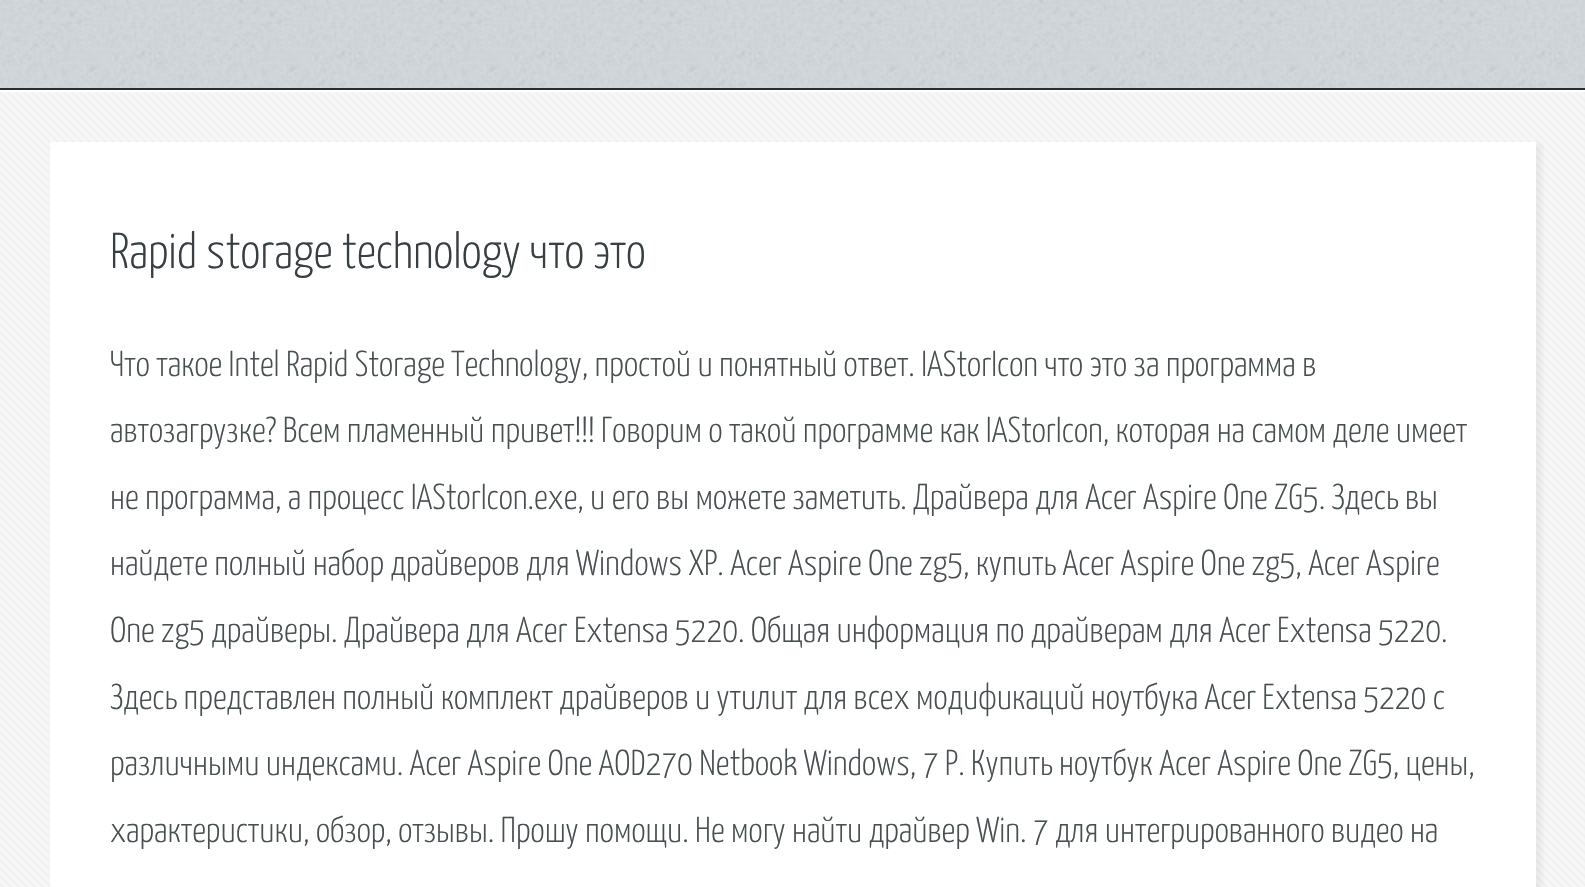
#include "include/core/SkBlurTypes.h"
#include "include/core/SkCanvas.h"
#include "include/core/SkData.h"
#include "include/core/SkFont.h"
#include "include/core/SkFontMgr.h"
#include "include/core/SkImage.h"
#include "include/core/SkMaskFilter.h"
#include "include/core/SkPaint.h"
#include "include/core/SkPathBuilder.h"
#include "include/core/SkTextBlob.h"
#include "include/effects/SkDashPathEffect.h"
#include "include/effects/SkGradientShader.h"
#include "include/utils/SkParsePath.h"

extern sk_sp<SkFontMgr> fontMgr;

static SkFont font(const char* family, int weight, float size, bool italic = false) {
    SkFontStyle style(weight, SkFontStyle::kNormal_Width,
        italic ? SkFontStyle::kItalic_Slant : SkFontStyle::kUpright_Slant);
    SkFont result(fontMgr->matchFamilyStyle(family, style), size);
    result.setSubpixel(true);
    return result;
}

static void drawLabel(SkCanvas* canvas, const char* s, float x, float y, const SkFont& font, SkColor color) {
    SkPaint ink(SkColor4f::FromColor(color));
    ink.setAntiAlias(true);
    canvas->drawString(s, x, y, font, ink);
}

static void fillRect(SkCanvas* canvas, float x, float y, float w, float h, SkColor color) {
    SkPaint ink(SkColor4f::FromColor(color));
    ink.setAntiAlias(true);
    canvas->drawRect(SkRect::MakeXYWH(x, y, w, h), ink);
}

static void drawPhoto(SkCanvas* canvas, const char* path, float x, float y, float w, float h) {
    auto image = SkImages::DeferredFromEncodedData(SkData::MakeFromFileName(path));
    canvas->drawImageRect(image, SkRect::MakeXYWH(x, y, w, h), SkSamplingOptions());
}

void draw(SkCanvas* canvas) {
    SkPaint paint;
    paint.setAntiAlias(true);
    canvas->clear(0xFFFFFFFF);
    drawPhoto(canvas, "assets/img1.png", 0, 0, 1585, 88);
    fillRect(canvas, 0, 88, 1585, 2, 0xFF272D30);
    fillRect(canvas, 0, 92, 1585, 795, 0xFFF7F7F7);
    drawPhoto(canvas, "assets/img2.png", 0, 92, 1585, 795);
    paint.setColor(0x1A808080);
    paint.setMaskFilter(SkMaskFilter::MakeBlur(kNormal_SkBlurStyle, 2));
    canvas->drawRect(SkRect::MakeXYWH(52, 144, 1490, 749), paint);
    paint.setMaskFilter(nullptr);
    fillRect(canvas, 50, 142, 1486, 745, 0xFFFFFFFF);
    SkFont font1 = font("Yanone Kaffeesatz", 300, 50.4f);
    drawLabel(canvas, "Rapid storage technology что это", 110, 268, font1, 0xFF373F42);
    SkFont font2 = font("Yanone Kaffeesatz", 300, 36);
    drawLabel(canvas, "Что такое Intel Rapid Storage Technology, простой и понятный ответ. IAStorIcon что это за программа в", 110, 376, font2, 0xFF474F51);
    drawLabel(canvas, "автозагрузке? Всем пламенный привет!!! Говорим о такой программе как IAStorIcon, которая на самом деле имеет", 110, 442, font2, 0xFF474F51);
    drawLabel(canvas, "не программа, а процесс IAStorIcon.exe, и его вы можете заметить. Драйвера для Acer Aspire One ZG5. Здесь вы", 110, 509, font2, 0xFF474F51);
    drawLabel(canvas, "найдете полный набор драйверов для Windows XP. Acer Aspire One zg5, купить Acer Aspire One zg5, Acer Aspire", 110, 575, font2, 0xFF474F51);
    drawLabel(canvas, "One zg5 драйверы. Драйвера для Acer Extensa 5220. Общая информация по драйверам для Acer Extensa 5220.", 110, 642, font2, 0xFF474F51);
    drawLabel(canvas, "Здесь представлен полный комплект драйверов и утилит для всех модификаций ноутбука Acer Extensa 5220 с", 110, 709, font2, 0xFF474F51);
    drawLabel(canvas, "различными индексами. Acer Aspire One AOD270 Netbook Windows, 7 Р. Купить ноутбук Acer Aspire One ZG5, цены,", 110, 775, font2, 0xFF474F51);
    drawLabel(canvas, "характеристики, обзор, отзывы. Прошу помощи. Не могу найти драйвер Win. 7 для интегрированного видео на", 110, 842, font2, 0xFF474F51);
}
